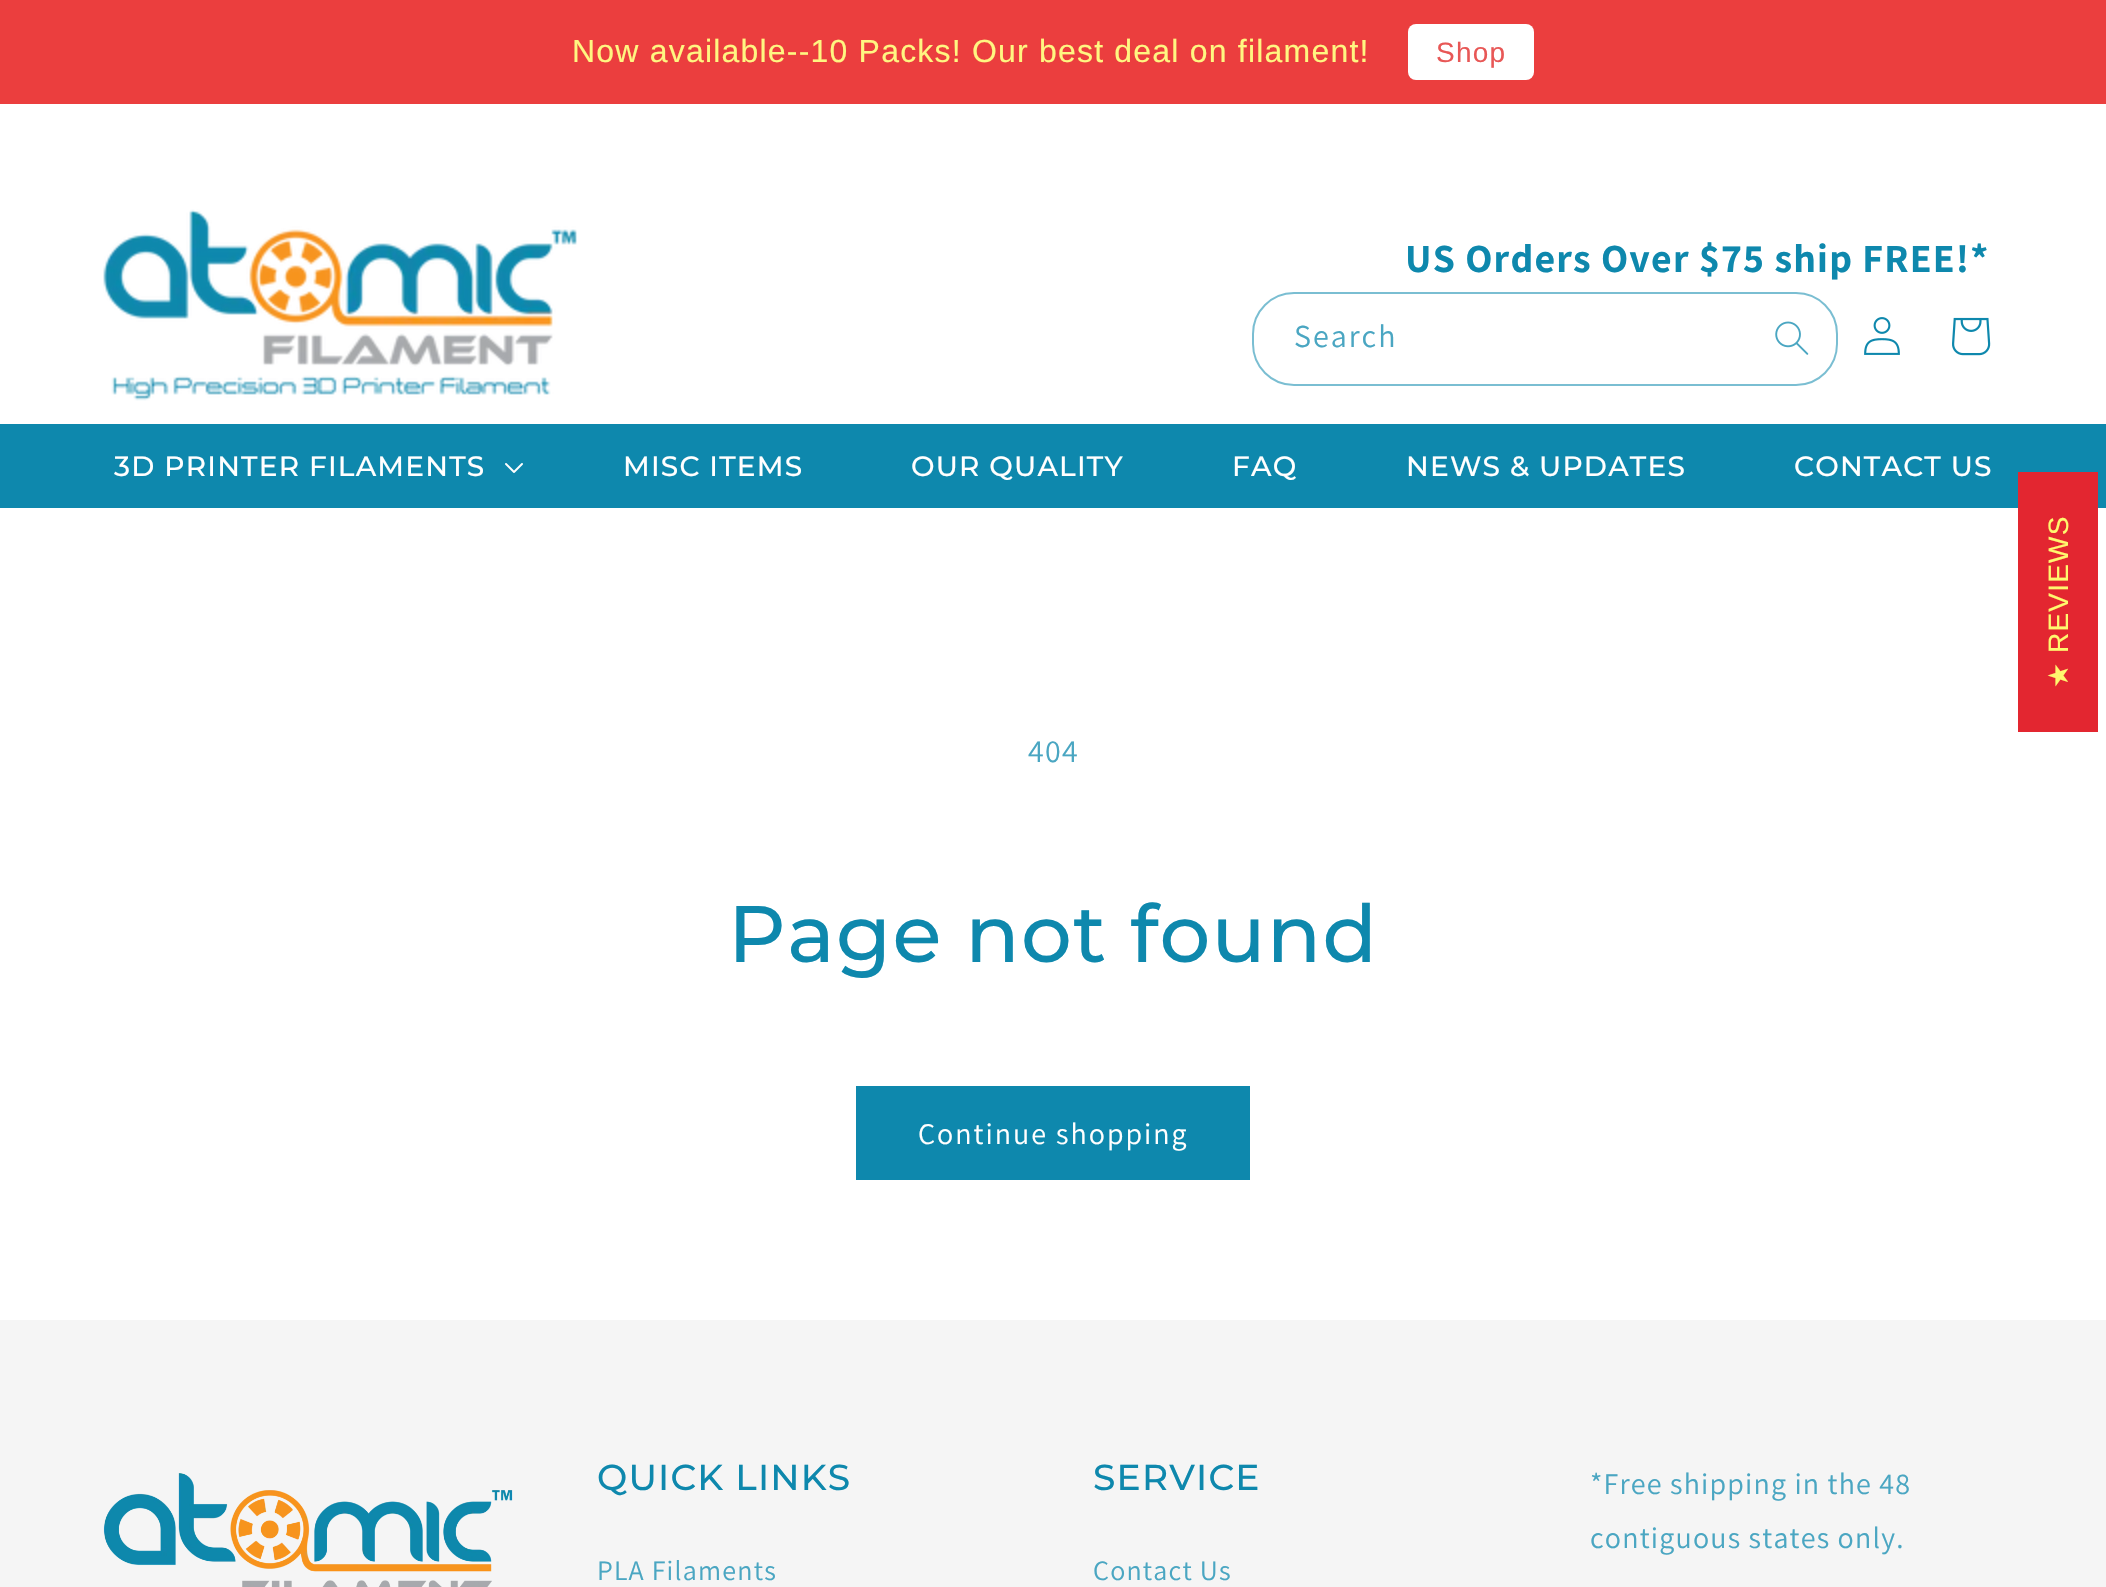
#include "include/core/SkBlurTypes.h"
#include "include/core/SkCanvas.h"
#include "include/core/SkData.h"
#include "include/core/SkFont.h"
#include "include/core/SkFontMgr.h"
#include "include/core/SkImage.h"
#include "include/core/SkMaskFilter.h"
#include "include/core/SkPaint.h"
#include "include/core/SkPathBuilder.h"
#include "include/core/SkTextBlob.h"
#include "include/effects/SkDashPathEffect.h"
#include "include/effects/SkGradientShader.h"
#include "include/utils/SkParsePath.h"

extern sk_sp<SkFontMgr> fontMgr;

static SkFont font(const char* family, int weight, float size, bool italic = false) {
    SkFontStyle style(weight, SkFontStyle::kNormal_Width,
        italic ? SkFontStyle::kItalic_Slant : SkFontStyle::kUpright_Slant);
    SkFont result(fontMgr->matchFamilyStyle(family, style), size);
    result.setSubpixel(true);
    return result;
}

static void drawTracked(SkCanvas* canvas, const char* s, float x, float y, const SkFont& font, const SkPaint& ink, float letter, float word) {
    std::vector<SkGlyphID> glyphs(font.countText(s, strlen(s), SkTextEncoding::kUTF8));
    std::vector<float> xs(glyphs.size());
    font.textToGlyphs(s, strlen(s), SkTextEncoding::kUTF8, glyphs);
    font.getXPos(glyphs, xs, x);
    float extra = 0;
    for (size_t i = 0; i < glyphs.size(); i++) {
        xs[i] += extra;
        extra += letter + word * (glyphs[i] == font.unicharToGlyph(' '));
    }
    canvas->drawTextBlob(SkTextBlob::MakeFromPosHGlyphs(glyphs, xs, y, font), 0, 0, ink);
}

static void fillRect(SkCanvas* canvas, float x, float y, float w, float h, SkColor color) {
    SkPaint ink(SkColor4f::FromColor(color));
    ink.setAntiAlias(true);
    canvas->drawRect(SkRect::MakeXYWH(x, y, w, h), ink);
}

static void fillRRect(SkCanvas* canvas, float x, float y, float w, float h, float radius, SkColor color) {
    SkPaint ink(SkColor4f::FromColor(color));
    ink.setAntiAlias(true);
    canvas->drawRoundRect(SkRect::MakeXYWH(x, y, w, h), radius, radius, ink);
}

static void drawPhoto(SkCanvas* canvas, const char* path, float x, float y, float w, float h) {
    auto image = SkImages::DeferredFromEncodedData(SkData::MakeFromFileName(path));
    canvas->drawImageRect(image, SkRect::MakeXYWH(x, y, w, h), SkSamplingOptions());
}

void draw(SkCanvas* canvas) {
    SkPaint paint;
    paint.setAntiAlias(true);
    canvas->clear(0xFFFFFFFF);
    fillRect(canvas, 0, 0, 2106, 104, 0xFFEB3E3E);
    SkFont font1 = font("Liberation Sans", 400, 32);
    paint.setColor(0xFFFFF681);
    drawTracked(canvas, "Now available--10 Packs! Our best deal on filament!", 572, 62, font1, paint, 1.2f, 0);
    fillRRect(canvas, 1408, 24, 126, 56, 8, 0xFFFFFFFF);
    SkFont font2 = font("Liberation Sans", 400, 28);
    paint.setColor(0xFFE85756);
    drawTracked(canvas, "Shop", 1436, 62, font2, paint, 1.2f, 0);
    drawPhoto(canvas, "assets/img1.png", 103, 209, 474, 192);
    SkFont font3 = font("Assistant", 700, 40);
    paint.setColor(0xFF0E88AD);
    drawTracked(canvas, "US Orders Over $75 ship FREE!*", 1405, 272, font3, paint, 1.2f, 0);
    paint.setStroke(true);
    paint.setStrokeWidth(2);
    paint.setColor(0xFF7ABED2);
    canvas->drawRoundRect(SkRect::MakeXYWH(1253, 293, 584, 92), 41, 41, paint);
    SkFont font4 = font("Assistant", 400, 32);
    paint.setStroke(false);
    paint.setColor(0xFF4AA6C2);
    drawTracked(canvas, "Search", 1294, 347, font4, paint, 2, 0);
    drawPhoto(canvas, "assets/img2.png", 1775, 321, 34, 34);
    drawPhoto(canvas, "assets/img3.png", 1864, 317, 36, 38);
    drawPhoto(canvas, "assets/img4.png", 1952, 317, 39, 39);
    fillRect(canvas, 0, 424, 2106, 84, 0xFF0E88AD);
    SkFont font5 = font("Montserrat", 500, 28);
    paint.setColor(0xFFFFFFFF);
    drawTracked(canvas, "3D PRINTER FILAMENTS", 114, 476, font5, paint, 1.2f, 0);
    drawPhoto(canvas, "assets/img5.png", 505, 463, 18, 10);
    drawTracked(canvas, "MISC ITEMS", 623, 476, font5, paint, 1.2f, 0);
    drawTracked(canvas, "OUR QUALITY", 911, 476, font5, paint, 1.2f, 0);
    drawTracked(canvas, "FAQ", 1232, 476, font5, paint, 1.2f, 0);
    drawTracked(canvas, "NEWS & UPDATES", 1406, 476, font5, paint, 1.2f, 0);
    drawTracked(canvas, "CONTACT US", 1794, 476, font5, paint, 1.2f, 0);
    fillRect(canvas, 2018, 472, 80, 260, 0xFFE32630);
    paint.setColor(0xFFFFF86E);
    canvas->save();
    canvas->rotate(-90, 2068, 653);
    drawTracked(canvas, "REVIEWS", 2068, 653, font2, paint, 1.2f, 0);
    canvas->restore();
    SkFont font6 = font("DejaVu Sans", 400, 28);
    canvas->save();
    canvas->rotate(-90, 2068, 688);
    drawTracked(canvas, "★", 2068, 688, font6, paint, 1.2f, 0);
    canvas->restore();
    paint.setColor(0xFF4AA6C2);
    drawTracked(canvas, "404", 1028, 762, font4, paint, 1.2f, 0);
    SkFont font7 = font("Montserrat", 500, 80);
    paint.setColor(0xFF0E88AD);
    drawTracked(canvas, "Page not found", 728, 962, font7, paint, 1.2f, 0);
    fillRect(canvas, 856, 1086, 394, 94, 0xFF0E88AD);
    SkFont font8 = font("Assistant", 400, 30);
    paint.setColor(0xFFFFFFFF);
    drawTracked(canvas, "Continue shopping", 918, 1144, font8, paint, 2, 0);
    fillRect(canvas, 0, 1320, 2106, 267, 0xFFF5F5F5);
    drawPhoto(canvas, "assets/img6.png", 103, 1473, 410, 114);
    SkFont font9 = font("Montserrat", 500, 36);
    paint.setColor(0xFF0E88AD);
    drawTracked(canvas, "QUICK LINKS", 597, 1490, font9, paint, 1.2f, 0);
    SkFont font10 = font("Assistant", 400, 28);
    paint.setColor(0xFF4AA6C2);
    drawTracked(canvas, "PLA Filaments", 597, 1580, font10, paint, 1.2f, 0);
    paint.setColor(0xFF0E88AD);
    drawTracked(canvas, "SERVICE", 1093, 1490, font9, paint, 1.2f, 0);
    paint.setColor(0xFF4AA6C2);
    drawTracked(canvas, "Contact Us", 1093, 1580, font10, paint, 1.2f, 0);
    drawTracked(canvas, "*Free shipping in the 48", 1590, 1494, font8, paint, 1.2f, 0);
    drawTracked(canvas, "contiguous states only.", 1590, 1548, font8, paint, 1.2f, 0);
}
